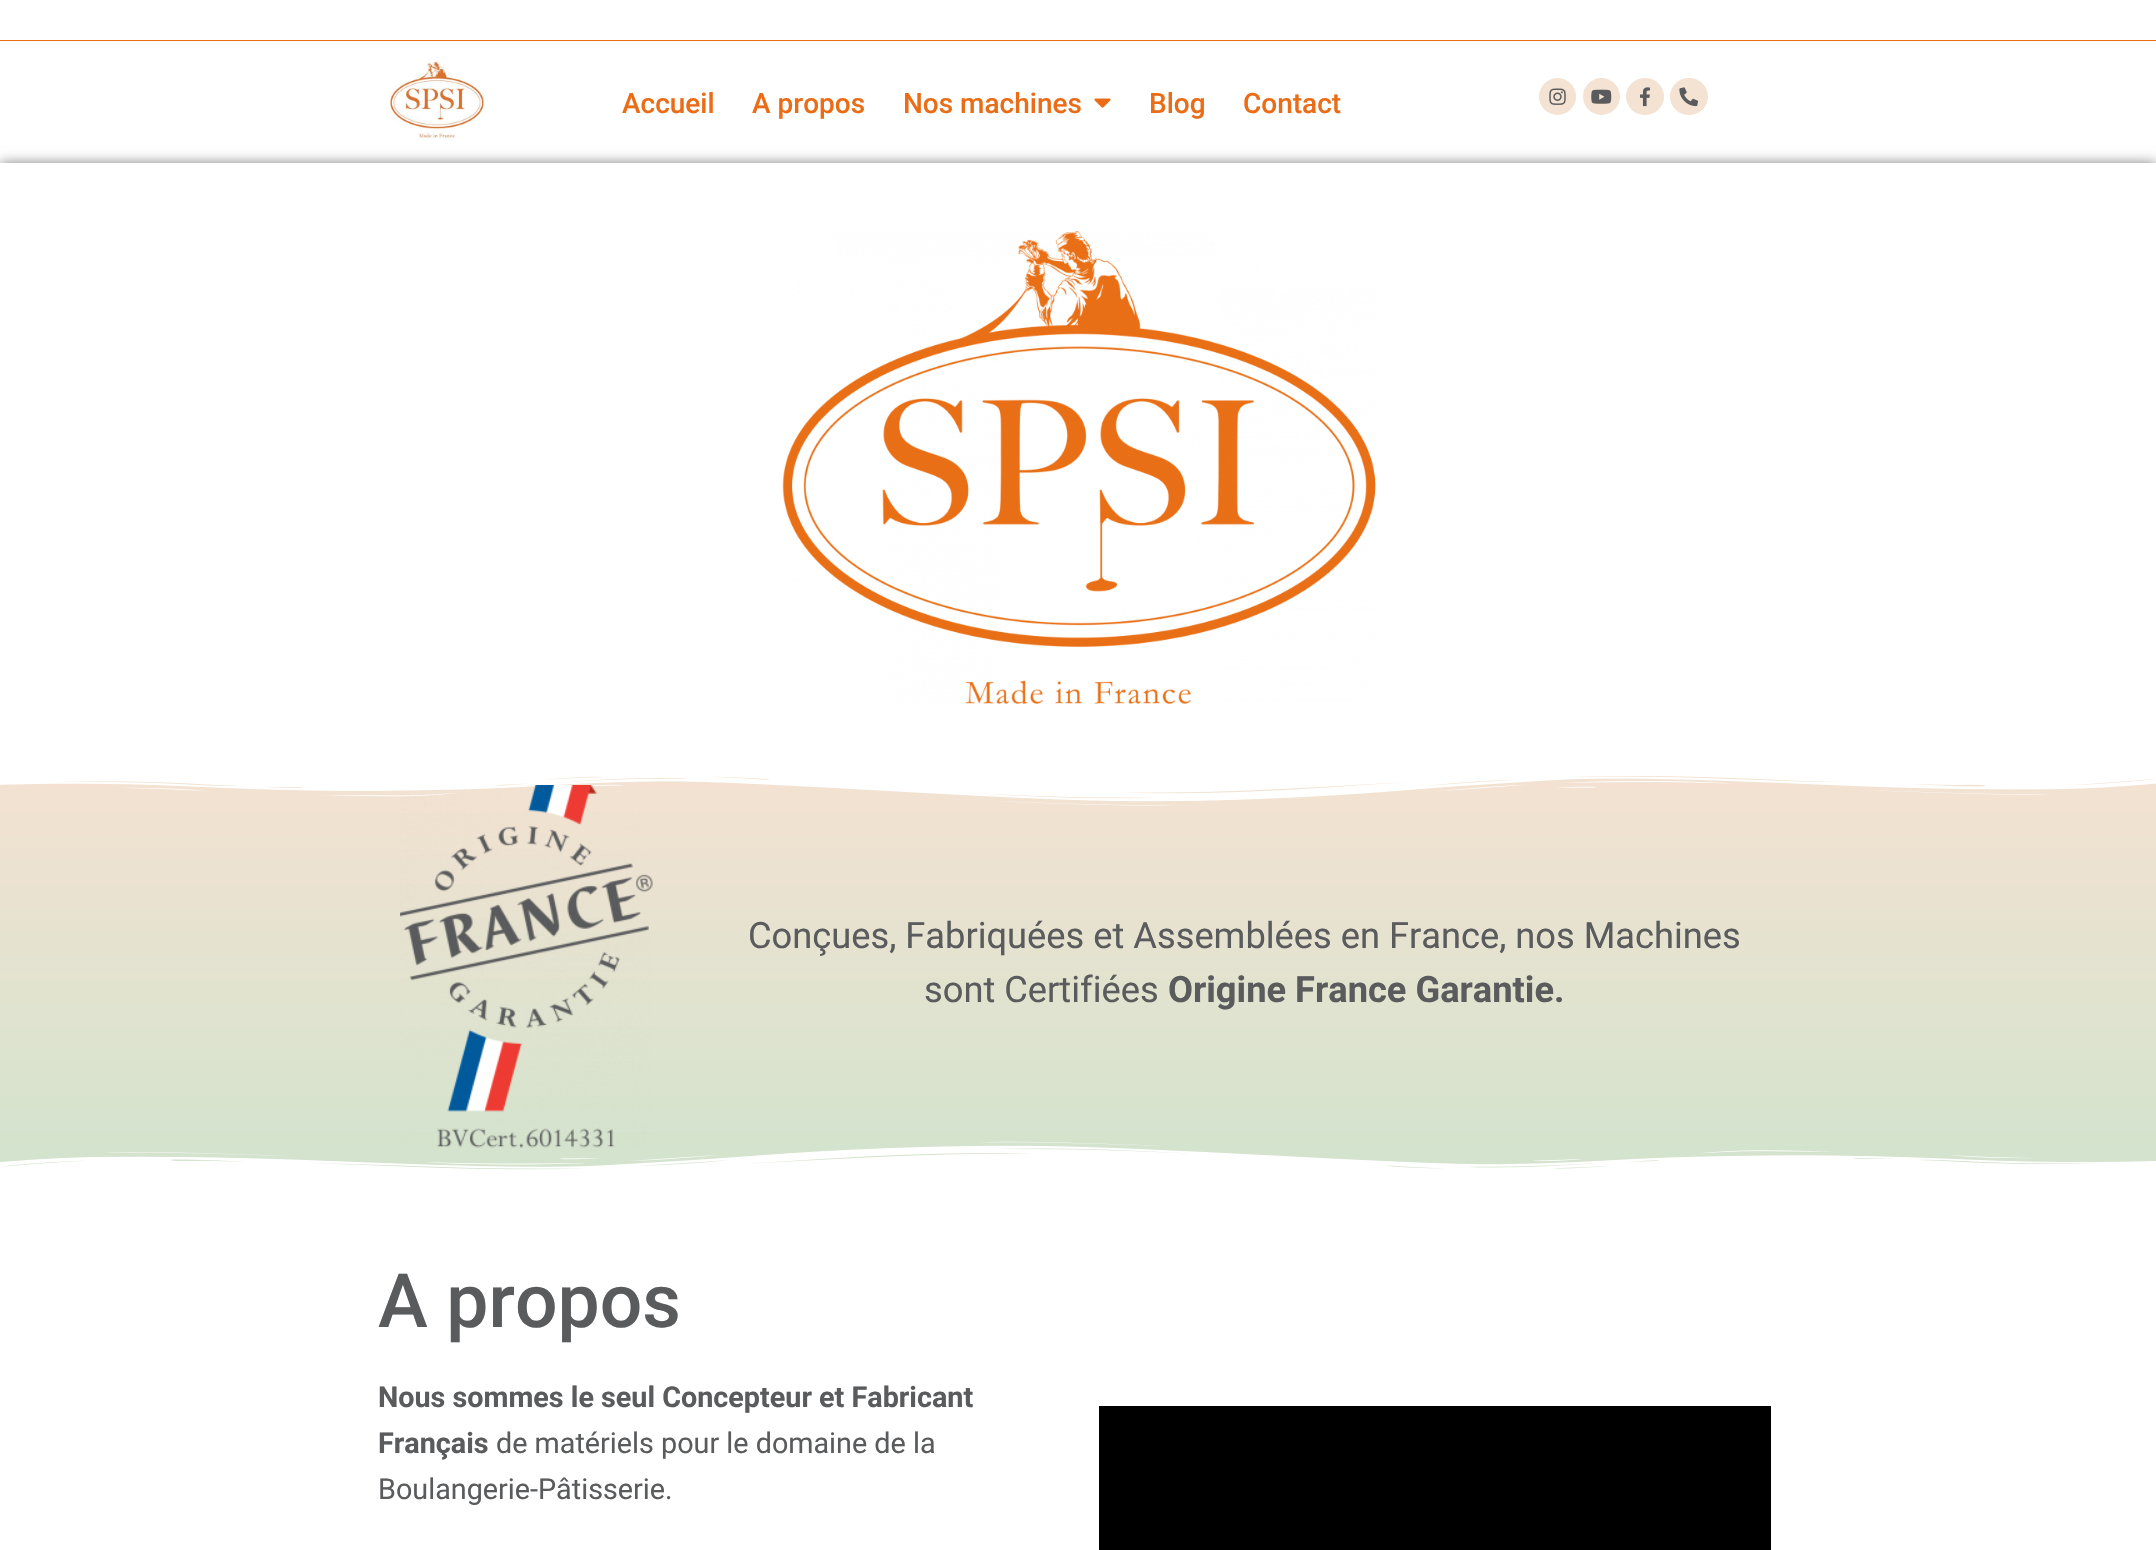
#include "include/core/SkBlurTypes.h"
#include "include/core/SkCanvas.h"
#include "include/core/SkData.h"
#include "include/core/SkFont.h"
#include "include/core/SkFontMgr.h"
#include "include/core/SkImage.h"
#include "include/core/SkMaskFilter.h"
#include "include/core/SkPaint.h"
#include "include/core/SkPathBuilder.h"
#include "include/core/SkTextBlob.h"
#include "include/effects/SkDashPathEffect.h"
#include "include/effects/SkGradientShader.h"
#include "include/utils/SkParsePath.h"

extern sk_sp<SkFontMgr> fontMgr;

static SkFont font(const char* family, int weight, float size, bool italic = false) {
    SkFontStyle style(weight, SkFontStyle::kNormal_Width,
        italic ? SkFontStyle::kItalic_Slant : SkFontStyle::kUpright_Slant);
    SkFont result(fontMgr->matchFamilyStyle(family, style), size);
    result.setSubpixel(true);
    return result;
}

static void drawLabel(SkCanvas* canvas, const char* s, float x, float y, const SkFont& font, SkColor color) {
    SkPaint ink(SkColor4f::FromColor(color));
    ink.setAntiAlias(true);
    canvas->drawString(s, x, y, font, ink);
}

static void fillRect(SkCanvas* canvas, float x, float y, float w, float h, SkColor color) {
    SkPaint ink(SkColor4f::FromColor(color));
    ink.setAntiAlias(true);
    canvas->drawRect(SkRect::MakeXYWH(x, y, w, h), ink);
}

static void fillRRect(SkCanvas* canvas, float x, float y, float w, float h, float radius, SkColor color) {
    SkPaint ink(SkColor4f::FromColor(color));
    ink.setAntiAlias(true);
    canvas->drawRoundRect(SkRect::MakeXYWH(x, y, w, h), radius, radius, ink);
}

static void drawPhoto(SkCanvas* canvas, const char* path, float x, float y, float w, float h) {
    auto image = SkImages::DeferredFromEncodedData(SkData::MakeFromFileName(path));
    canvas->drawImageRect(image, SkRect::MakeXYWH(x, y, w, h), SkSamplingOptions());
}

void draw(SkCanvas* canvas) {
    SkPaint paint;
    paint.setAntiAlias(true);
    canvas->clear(0xFFFFFFFF);
    fillRect(canvas, 0, 40, 2156, 1, 0xFFEB6C17);
    drawPhoto(canvas, "assets/img1.png", 389, 61, 97, 79);
    SkFont font1 = font("Roboto", 500, 28);
    drawLabel(canvas, "Accueil", 622, 113, font1, 0xFFEB6C17);
    drawLabel(canvas, "A propos", 752, 113, font1, 0xFFEB6C17);
    drawLabel(canvas, "Nos machines", 903, 113, font1, 0xFFEB6C17);
    drawPhoto(canvas, "assets/img2.png", 1094, 98, 17, 10);
    drawLabel(canvas, "Blog", 1149, 113, font1, 0xFFEB6C17);
    drawLabel(canvas, "Contact", 1243, 113, font1, 0xFFEB6C17);
    paint.setColor(0xFFF4E2D2);
    canvas->drawCircle(1557.5f, 96.5f, 18.5f, paint);
    drawPhoto(canvas, "assets/img3.png", 1549, 88, 17, 17);
    canvas->drawCircle(1601.5f, 96.5f, 18.5f, paint);
    drawPhoto(canvas, "assets/img4.png", 1591, 89, 21, 15);
    fillRRect(canvas, 1626, 78, 38, 37, 18.5f, 0xFFF4E2D2);
    drawPhoto(canvas, "assets/img5.png", 1640, 87, 10, 20);
    fillRRect(canvas, 1670, 78, 38, 37, 18.5f, 0xFFF4E2D2);
    drawPhoto(canvas, "assets/img6.png", 1679, 87, 20, 20);
    paint.setColor(0x80000000);
    paint.setMaskFilter(SkMaskFilter::MakeBlur(kNormal_SkBlurStyle, 6));
    canvas->drawRect(SkRect::MakeXYWH(0, 163, 2156, 610), paint);
    paint.setMaskFilter(nullptr);
    fillRect(canvas, 0, 163, 2156, 610, 0xFFFFFFFF);
    drawPhoto(canvas, "assets/img7.png", 782, 231, 594, 473);
    {
        const SkColor colors[] = {0xFFF4E2D2, 0xFFD2E3CD};
        const float stops[] = {0, 1};
        const SkPoint ends[] = {{1078, 772}, {1078, 1173}};
        paint.setShader(SkGradientShader::MakeLinear(ends, colors, stops, 2, SkTileMode::kClamp));
        paint.setAlpha(255);
    }
    canvas->drawRect(SkRect::MakeXYWH(0, 775, 2156, 395), paint);
    drawPhoto(canvas, "assets/img8.png", 0, 773, 2156, 33);
    drawPhoto(canvas, "assets/img10.png", 0, 1141, 2156, 32);
    drawPhoto(canvas, "assets/img9.png", 400, 785, 253, 363);
    SkFont font2 = font("Roboto", 400, 36.25f);
    drawLabel(canvas, "Conçues, Fabriquées et Assemblées en France, nos Machines", 748, 948, font2, 0xFF5A5B5D);
    drawLabel(canvas, "sont Certifiées", 924, 1002, font2, 0xFF5A5B5D);
    SkFont font3 = font("Roboto", 700, 36.25f);
    drawLabel(canvas, "Origine France Garantie.", 1168, 1002, font3, 0xFF5A5B5D);
    SkFont font4 = font("Roboto", 500, 75);
    drawLabel(canvas, "A propos", 378, 1327, font4, 0xFF5A5B5D);
    SkFont font5 = font("Roboto", 700, 28.75f);
    drawLabel(canvas, "Nous sommes le seul Concepteur et Fabricant", 378, 1407, font5, 0xFF5A5B5D);
    drawLabel(canvas, "Français", 378, 1453, font5, 0xFF5A5B5D);
    SkFont font6 = font("Roboto", 400, 28.75f);
    drawLabel(canvas, "de matériels pour le domaine de la", 496, 1453, font6, 0xFF5A5B5D);
    drawLabel(canvas, "Boulangerie-Pâtisserie.", 378, 1499, font6, 0xFF5A5B5D);
    fillRect(canvas, 1099, 1406, 672, 144, 0xFF000000);
}
